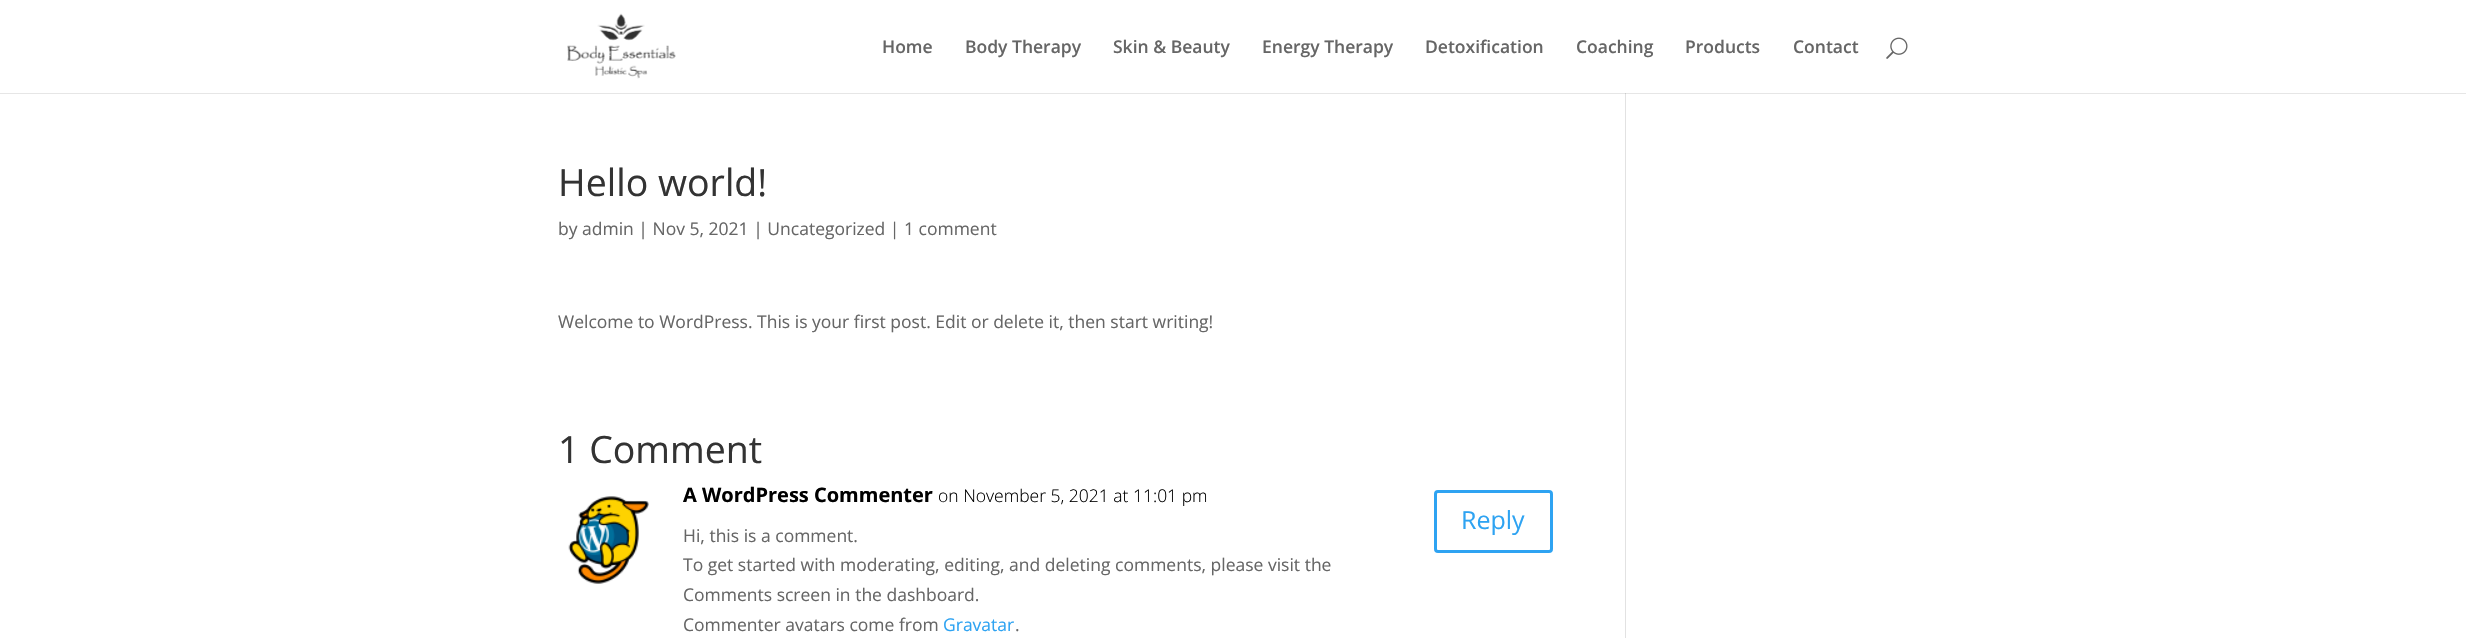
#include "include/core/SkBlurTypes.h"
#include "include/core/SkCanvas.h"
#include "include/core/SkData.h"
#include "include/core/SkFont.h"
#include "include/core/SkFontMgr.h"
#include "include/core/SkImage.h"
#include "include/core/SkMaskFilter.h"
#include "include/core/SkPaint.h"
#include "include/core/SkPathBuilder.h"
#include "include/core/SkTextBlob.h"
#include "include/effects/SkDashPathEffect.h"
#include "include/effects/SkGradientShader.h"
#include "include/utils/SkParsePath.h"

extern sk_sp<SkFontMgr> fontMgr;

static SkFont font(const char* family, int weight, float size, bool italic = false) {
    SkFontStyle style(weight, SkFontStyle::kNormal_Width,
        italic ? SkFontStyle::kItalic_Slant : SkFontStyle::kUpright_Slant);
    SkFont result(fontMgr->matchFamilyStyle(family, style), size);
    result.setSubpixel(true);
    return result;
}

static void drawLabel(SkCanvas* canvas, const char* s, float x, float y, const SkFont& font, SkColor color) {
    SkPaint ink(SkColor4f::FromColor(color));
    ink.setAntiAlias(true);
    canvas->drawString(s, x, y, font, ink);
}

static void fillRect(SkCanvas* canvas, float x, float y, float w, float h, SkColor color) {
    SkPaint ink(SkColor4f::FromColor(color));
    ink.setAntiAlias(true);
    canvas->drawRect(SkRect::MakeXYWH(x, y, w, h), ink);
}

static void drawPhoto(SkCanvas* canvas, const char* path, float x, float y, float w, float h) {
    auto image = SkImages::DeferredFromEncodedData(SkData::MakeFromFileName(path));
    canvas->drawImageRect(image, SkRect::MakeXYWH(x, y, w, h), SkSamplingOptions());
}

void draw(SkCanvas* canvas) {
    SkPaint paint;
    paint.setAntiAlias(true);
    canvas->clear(0xFFFFFFFF);
    fillRect(canvas, 0, 93, 2466, 1, 0xFFE6E6E6);
    fillRect(canvas, 1625, 91, 1, 547, 0xFFE2E2E2);
    fillRect(canvas, 1625, 92, 1, 2, 0xFFCBCBCB);
    fillRect(canvas, 1625, 91, 1, 2, 0xFFFFFFFF);
    drawPhoto(canvas, "assets/img1.png", 567, 13, 109, 66);
    SkFont font1 = font("Open Sans", 600, 17.5f);
    drawLabel(canvas, "Home", 882, 53, font1, 0xFF666666);
    drawLabel(canvas, "Body Therapy", 965, 53, font1, 0xFF666666);
    drawLabel(canvas, "Skin & Beauty", 1113, 53, font1, 0xFF666666);
    drawLabel(canvas, "Energy Therapy", 1262, 53, font1, 0xFF666666);
    drawLabel(canvas, "Detoxification", 1425, 53, font1, 0xFF666666);
    drawLabel(canvas, "Coaching", 1576, 53, font1, 0xFF666666);
    drawLabel(canvas, "Products", 1685, 53, font1, 0xFF666666);
    drawLabel(canvas, "Contact", 1793, 53, font1, 0xFF666666);
    drawPhoto(canvas, "assets/img2.png", 1886, 37, 22, 22);
    SkFont font2 = font("Open Sans", 400, 37.5f);
    drawLabel(canvas, "Hello world!", 558, 196, font2, 0xFF333333);
    SkFont font3 = font("Open Sans", 400, 17.5f);
    drawLabel(canvas, "by admin | Nov 5, 2021 | Uncategorized | 1 comment", 558, 235, font3, 0xFF666666);
    drawLabel(canvas, "Welcome to WordPress. This is your first post. Edit or delete it, then start writing!", 558, 328, font3, 0xFF666666);
    drawLabel(canvas, "1 Comment", 558, 463, font2, 0xFF333333);
    drawPhoto(canvas, "assets/img3.png", 568, 496, 81, 88);
    SkFont font4 = font("Open Sans", 700, 20);
    drawLabel(canvas, "A WordPress Commenter", 683, 502, font4, 0xFF000000);
    SkFont font5 = font("Open Sans", 300, 17.5f);
    drawLabel(canvas, "on November 5, 2021 at 11:01 pm", 938, 502, font5, 0xFF000000);
    paint.setStroke(true);
    paint.setStrokeWidth(3);
    paint.setColor(0xFF2EA3F2);
    canvas->drawRoundRect(SkRect::MakeXYWH(1435.5f, 491.5f, 116, 60), 2.5f, 2.5f, paint);
    SkFont font6 = font("Open Sans", 400, 25);
    drawLabel(canvas, "Reply", 1461, 529, font6, 0xFF2EA3F2);
    drawLabel(canvas, "Hi, this is a comment.", 683, 542, font3, 0xFF666666);
    drawLabel(canvas, "To get started with moderating, editing, and deleting comments, please visit the", 683, 571, font3, 0xFF666666);
    drawLabel(canvas, "Comments screen in the dashboard.", 683, 601, font3, 0xFF666666);
    drawLabel(canvas, "Commenter avatars come from", 683, 631, font3, 0xFF666666);
    drawLabel(canvas, "Gravatar", 943, 631, font3, 0xFF2EA3F2);
    drawLabel(canvas, ".", 1015, 631, font3, 0xFF666666);
}
